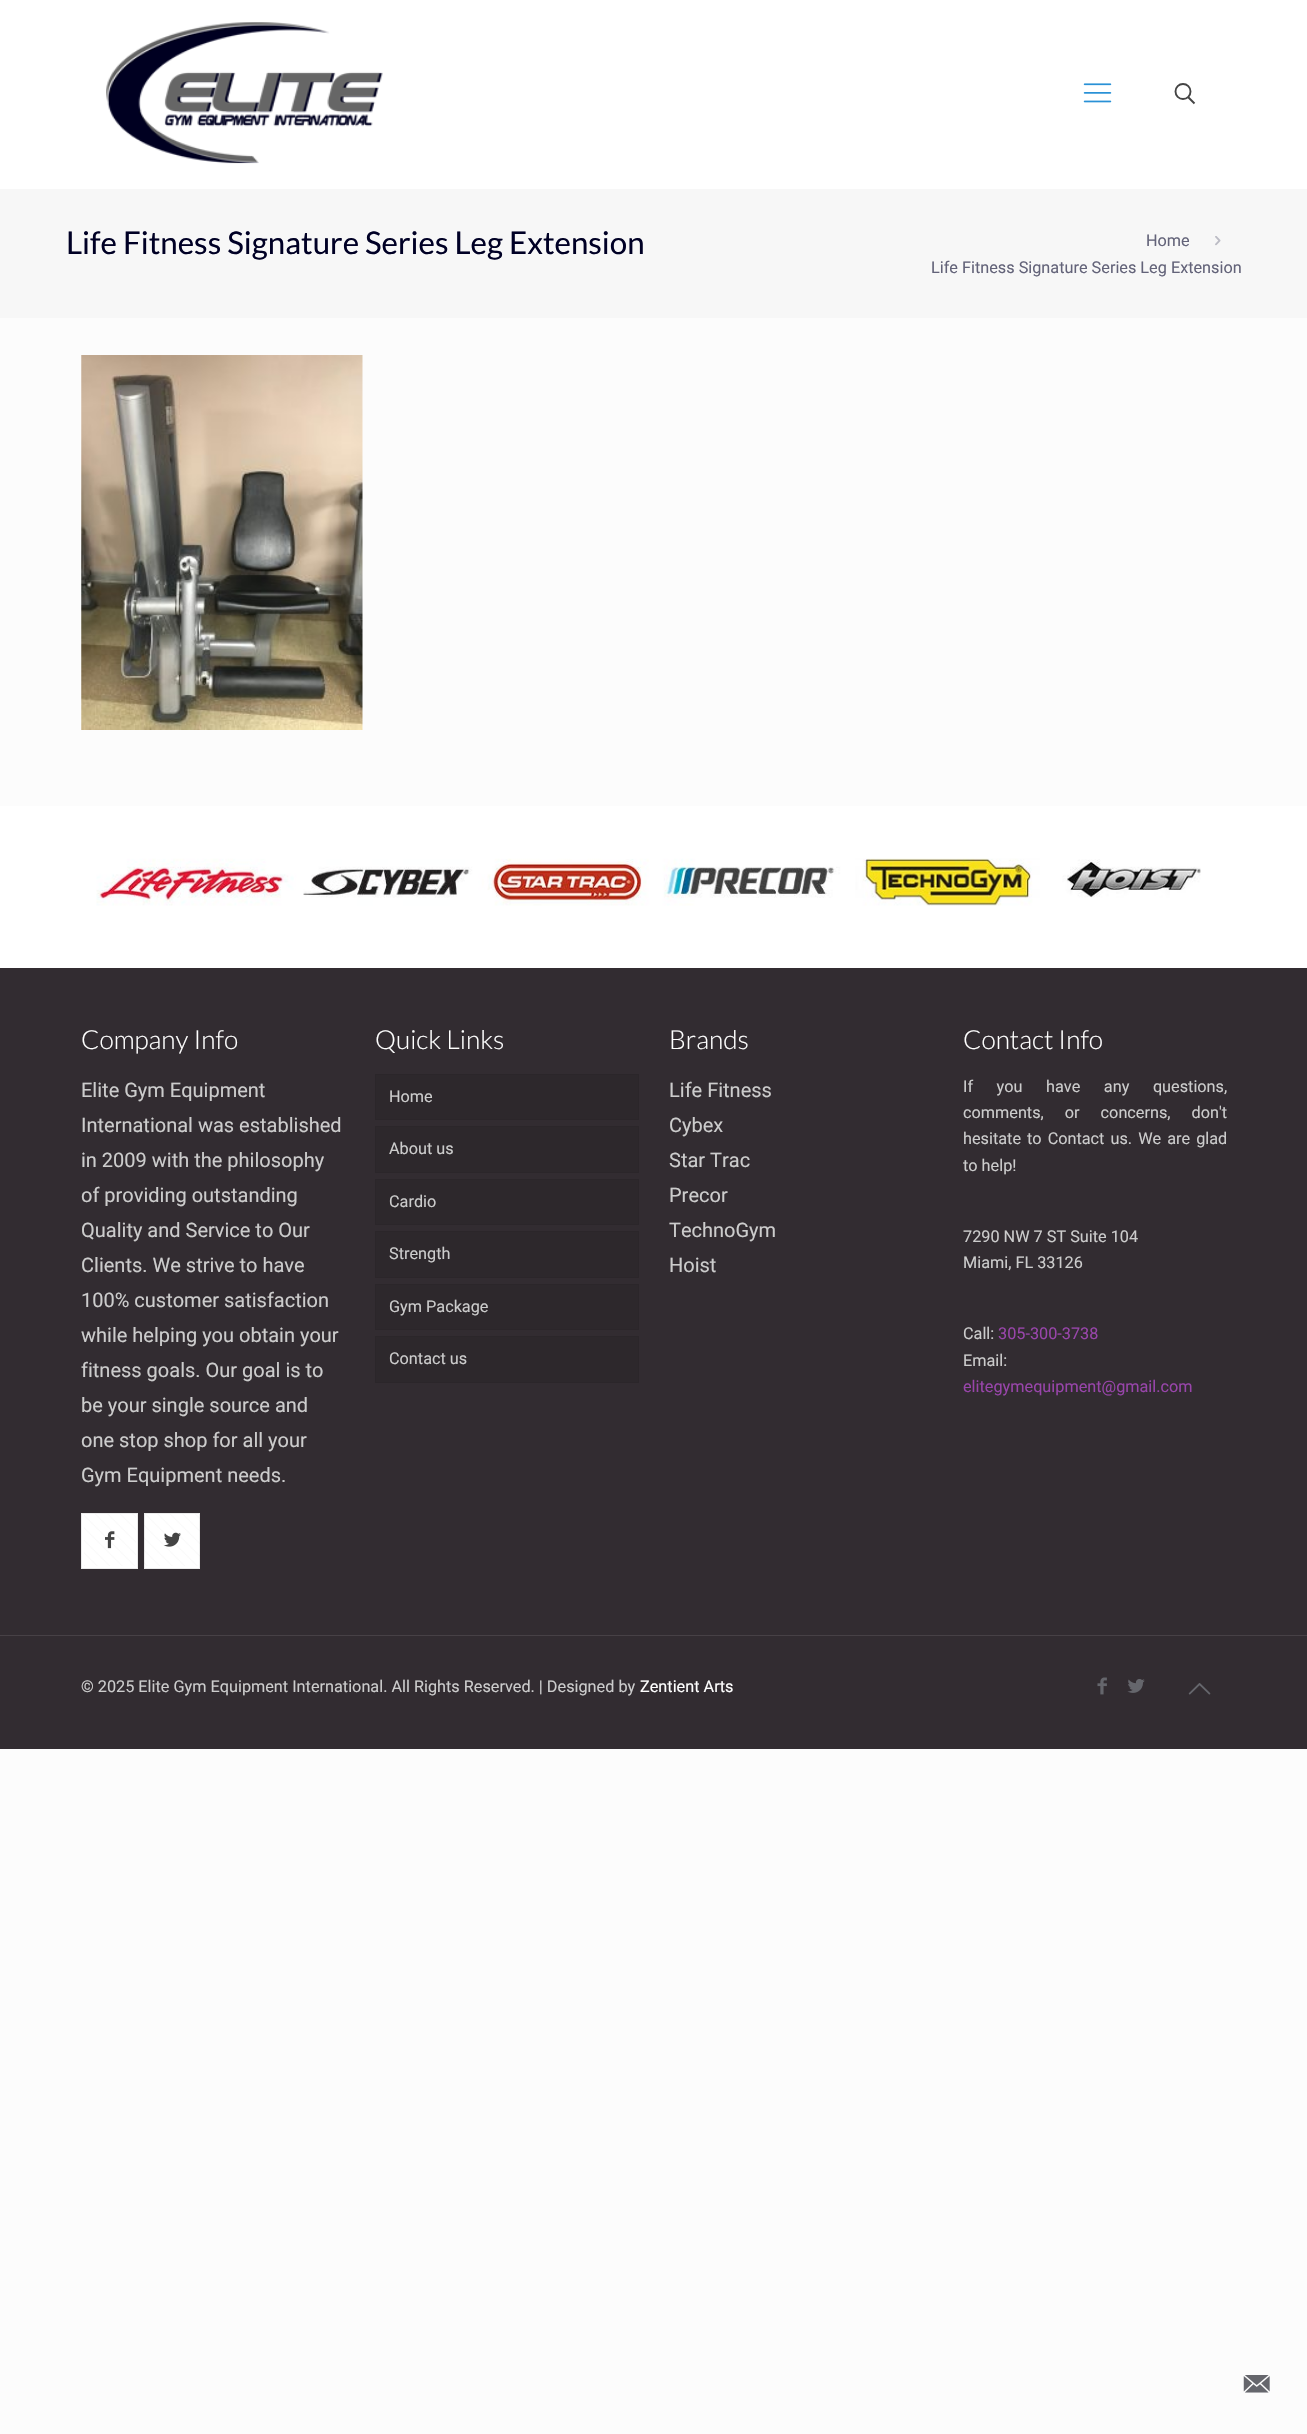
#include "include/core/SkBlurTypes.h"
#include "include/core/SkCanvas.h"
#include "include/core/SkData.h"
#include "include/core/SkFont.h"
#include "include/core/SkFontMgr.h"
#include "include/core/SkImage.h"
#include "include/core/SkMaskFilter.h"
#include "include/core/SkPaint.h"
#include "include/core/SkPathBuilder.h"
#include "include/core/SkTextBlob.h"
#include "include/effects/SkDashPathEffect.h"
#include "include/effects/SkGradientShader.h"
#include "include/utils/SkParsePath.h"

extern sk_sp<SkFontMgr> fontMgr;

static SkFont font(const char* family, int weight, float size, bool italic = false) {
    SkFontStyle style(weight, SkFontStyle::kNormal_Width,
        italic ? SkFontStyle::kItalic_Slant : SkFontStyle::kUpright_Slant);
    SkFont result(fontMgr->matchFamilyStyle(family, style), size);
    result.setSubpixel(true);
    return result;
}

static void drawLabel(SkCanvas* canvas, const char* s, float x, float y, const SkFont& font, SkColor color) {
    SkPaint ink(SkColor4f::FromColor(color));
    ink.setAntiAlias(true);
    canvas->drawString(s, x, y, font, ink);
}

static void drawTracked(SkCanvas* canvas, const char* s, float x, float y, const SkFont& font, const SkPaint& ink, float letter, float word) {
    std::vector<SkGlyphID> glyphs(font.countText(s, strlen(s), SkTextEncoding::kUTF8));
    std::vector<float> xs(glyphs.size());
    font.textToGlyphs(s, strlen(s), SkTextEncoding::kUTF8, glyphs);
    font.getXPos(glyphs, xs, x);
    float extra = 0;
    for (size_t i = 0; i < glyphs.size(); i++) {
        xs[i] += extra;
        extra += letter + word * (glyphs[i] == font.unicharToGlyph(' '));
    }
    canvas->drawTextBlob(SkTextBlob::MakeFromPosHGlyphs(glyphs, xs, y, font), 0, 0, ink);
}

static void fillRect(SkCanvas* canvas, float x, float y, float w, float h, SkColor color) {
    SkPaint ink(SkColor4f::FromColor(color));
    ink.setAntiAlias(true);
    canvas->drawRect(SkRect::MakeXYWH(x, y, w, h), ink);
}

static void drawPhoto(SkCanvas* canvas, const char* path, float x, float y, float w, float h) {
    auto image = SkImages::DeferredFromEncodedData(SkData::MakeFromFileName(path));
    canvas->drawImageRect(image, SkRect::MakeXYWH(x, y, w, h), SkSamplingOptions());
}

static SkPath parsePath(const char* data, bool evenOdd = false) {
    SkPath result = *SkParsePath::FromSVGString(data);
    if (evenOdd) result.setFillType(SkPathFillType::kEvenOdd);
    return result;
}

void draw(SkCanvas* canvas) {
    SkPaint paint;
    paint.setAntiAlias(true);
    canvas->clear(0xFFFCFCFC);
    fillRect(canvas, 0, 0, 1307, 189, 0xFFFFFFFF);
    drawPhoto(canvas, "assets/img1.png", 106, 22, 277, 142);
    drawPhoto(canvas, "assets/img2.png", 1083, 83, 29, 20);
    paint.setStroke(true);
    paint.setStrokeWidth(1.9f);
    paint.setColor(0xFF444444);
    canvas->drawCircle(1183, 91.5f, 7.5f, paint);
    canvas->drawPath(parsePath("M1188 97L1194.5 103.5"), paint);
    fillRect(canvas, 0, 189, 1307, 129, 0xFFF7F7F7);
    SkFont font1 = font("Lato", 400, 31.25f);
    drawLabel(canvas, "Life Fitness Signature Series Leg Extension", 66, 254, font1, 0xFF000025);
    SkFont font2 = font("Roboto", 400, 16.25f);
    drawLabel(canvas, "Home", 1146, 246, font2, 0xFF636379);
    drawPhoto(canvas, "assets/img3.png", 1215, 236, 6, 10);
    drawLabel(canvas, "Life Fitness Signature Series Leg Extension", 931, 273, font2, 0xFF636379);
    drawPhoto(canvas, "assets/img4.png", 81, 355, 282, 375);
    fillRect(canvas, 0, 968, 1307, 781, 0xFF322C31);
    fillRect(canvas, 0, 806, 1307, 162, 0xFFFFFFFF);
    drawPhoto(canvas, "assets/img5.png", 96, 858, 1105, 48);
    SkFont font3 = font("Lato", 300, 26.25f);
    drawLabel(canvas, "Company Info", 81, 1049, font3, 0xFFFFFFFF);
    SkFont font4 = font("Roboto", 400, 20);
    drawLabel(canvas, "Elite Gym Equipment", 81, 1097, font4, 0xFFCCCCCC);
    drawLabel(canvas, "International was established", 81, 1132, font4, 0xFFCCCCCC);
    drawLabel(canvas, "in 2009 with the philosophy", 81, 1167, font4, 0xFFCCCCCC);
    drawLabel(canvas, "of providing outstanding", 81, 1202, font4, 0xFFCCCCCC);
    drawLabel(canvas, "Quality and Service to Our", 81, 1237, font4, 0xFFCCCCCC);
    drawLabel(canvas, "Clients. We strive to have", 81, 1272, font4, 0xFFCCCCCC);
    drawLabel(canvas, "100% customer satisfaction", 81, 1307, font4, 0xFFCCCCCC);
    drawLabel(canvas, "while helping you obtain your", 81, 1342, font4, 0xFFCCCCCC);
    drawLabel(canvas, "fitness goals. Our goal is to", 81, 1377, font4, 0xFFCCCCCC);
    drawLabel(canvas, "be your single source and", 81, 1412, font4, 0xFFCCCCCC);
    drawLabel(canvas, "one stop shop for all your", 81, 1447, font4, 0xFFCCCCCC);
    drawLabel(canvas, "Gym Equipment needs.", 81, 1482, font4, 0xFFCCCCCC);
    fillRect(canvas, 81, 1513, 57, 56, 0xFFFFFFFF);
    drawPhoto(canvas, "assets/img6.png", 84, 1514, 52, 52);
    paint.setStrokeWidth(1);
    paint.setColor(0x14000000);
    canvas->drawRect(SkRect::MakeXYWH(81.5f, 1513.5f, 56, 55), paint);
    drawPhoto(canvas, "assets/img7.png", 105, 1531, 10, 18);
    fillRect(canvas, 144, 1513, 56, 56, 0xFFFFFFFF);
    drawPhoto(canvas, "assets/img8.png", 144, 1514, 56, 52);
    canvas->drawRect(SkRect::MakeXYWH(144.5f, 1513.5f, 55, 55), paint);
    drawPhoto(canvas, "assets/img9.png", 163, 1532, 18, 15);
    drawLabel(canvas, "Quick Links", 375, 1049, font3, 0xFFFFFFFF);
    paint.setStroke(false);
    paint.setColor(0xFF2D282C);
    canvas->drawRect(SkRect::MakeXYWH(375.5f, 1074.5f, 263, 45), paint);
    paint.setStroke(true);
    paint.setColor(0xFF2B262A);
    canvas->drawRect(SkRect::MakeXYWH(375.5f, 1074.5f, 263, 45), paint);
    drawLabel(canvas, "Home", 389, 1102, font2, 0xFFCCCCCC);
    paint.setStroke(false);
    paint.setColor(0xFF2D282C);
    canvas->drawRect(SkRect::MakeXYWH(375.5f, 1126.5f, 263, 46), paint);
    paint.setStroke(true);
    paint.setColor(0xFF2B262A);
    canvas->drawRect(SkRect::MakeXYWH(375.5f, 1126.5f, 263, 46), paint);
    drawLabel(canvas, "About us", 389, 1154, font2, 0xFFCCCCCC);
    paint.setStroke(false);
    paint.setColor(0xFF2D282C);
    canvas->drawRect(SkRect::MakeXYWH(375.5f, 1179.5f, 263, 45), paint);
    paint.setStroke(true);
    paint.setColor(0xFF2B262A);
    canvas->drawRect(SkRect::MakeXYWH(375.5f, 1179.5f, 263, 45), paint);
    drawLabel(canvas, "Cardio", 389, 1207, font2, 0xFFCCCCCC);
    paint.setStroke(false);
    paint.setColor(0xFF2D282C);
    canvas->drawRect(SkRect::MakeXYWH(375.5f, 1231.5f, 263, 46), paint);
    paint.setStroke(true);
    paint.setColor(0xFF2B262A);
    canvas->drawRect(SkRect::MakeXYWH(375.5f, 1231.5f, 263, 46), paint);
    drawLabel(canvas, "Strength", 389, 1259, font2, 0xFFCCCCCC);
    paint.setStroke(false);
    paint.setColor(0xFF2D282C);
    canvas->drawRect(SkRect::MakeXYWH(375.5f, 1284.5f, 263, 45), paint);
    paint.setStroke(true);
    paint.setColor(0xFF2B262A);
    canvas->drawRect(SkRect::MakeXYWH(375.5f, 1284.5f, 263, 45), paint);
    drawLabel(canvas, "Gym Package", 389, 1312, font2, 0xFFCCCCCC);
    paint.setStroke(false);
    paint.setColor(0xFF2D282C);
    canvas->drawRect(SkRect::MakeXYWH(375.5f, 1336.5f, 263, 46), paint);
    paint.setStroke(true);
    paint.setColor(0xFF2B262A);
    canvas->drawRect(SkRect::MakeXYWH(375.5f, 1336.5f, 263, 46), paint);
    drawLabel(canvas, "Contact us", 389, 1364, font2, 0xFFCCCCCC);
    drawLabel(canvas, "Brands", 669, 1049, font3, 0xFFFFFFFF);
    drawLabel(canvas, "Life Fitness", 669, 1097, font4, 0xFFCCCCCC);
    drawLabel(canvas, "Cybex", 669, 1132, font4, 0xFFCCCCCC);
    drawLabel(canvas, "Star Trac", 669, 1167, font4, 0xFFCCCCCC);
    drawLabel(canvas, "Precor", 669, 1202, font4, 0xFFCCCCCC);
    drawLabel(canvas, "TechnoGym", 669, 1237, font4, 0xFFCCCCCC);
    drawLabel(canvas, "Hoist", 669, 1272, font4, 0xFFCCCCCC);
    drawLabel(canvas, "Contact Info", 963, 1049, font3, 0xFFFFFFFF);
    paint.setStroke(false);
    paint.setColor(0xFFCCCCCC);
    drawTracked(canvas, "If you have any questions,", 963, 1092, font2, paint, 0, 19.5f);
    drawTracked(canvas, "comments, or concerns, don't", 963, 1118, font2, paint, 0, 17);
    drawTracked(canvas, "hesitate to Contact us. We are glad", 963, 1144, font2, paint, 0, 2);
    drawLabel(canvas, "to help!", 963, 1171, font2, 0xFFCCCCCC);
    drawLabel(canvas, "7290 NW 7 ST Suite 104", 963, 1242, font2, 0xFFCCCCCC);
    drawLabel(canvas, "Miami, FL 33126", 963, 1268, font2, 0xFFCCCCCC);
    drawLabel(canvas, "Call:", 963, 1339, font2, 0xFFCCCCCC);
    drawLabel(canvas, "305-300-3738", 998, 1339, font2, 0xFF9845AA);
    drawLabel(canvas, "Email:", 963, 1366, font2, 0xFFCCCCCC);
    drawLabel(canvas, "elitegymequipment@gmail.com", 963, 1392, font2, 0xFF9845AA);
    fillRect(canvas, 0, 1635, 1307, 1, 0xFF474146);
    drawLabel(canvas, "© 2025 Elite Gym Equipment International. All Rights Reserved. | Designed by", 81, 1692, font2, 0xFFCCCCCC);
    drawLabel(canvas, "Zentient Arts", 640, 1692, font2, 0xFFFFFFFF);
    drawPhoto(canvas, "assets/img10.png", 1097, 1677, 10, 18);
    drawPhoto(canvas, "assets/img11.png", 1127, 1679, 18, 14);
    drawPhoto(canvas, "assets/img12.png", 1188, 1683, 23, 12);
    drawPhoto(canvas, "assets/img13.png", 1243, 2375, 27, 18);
}
